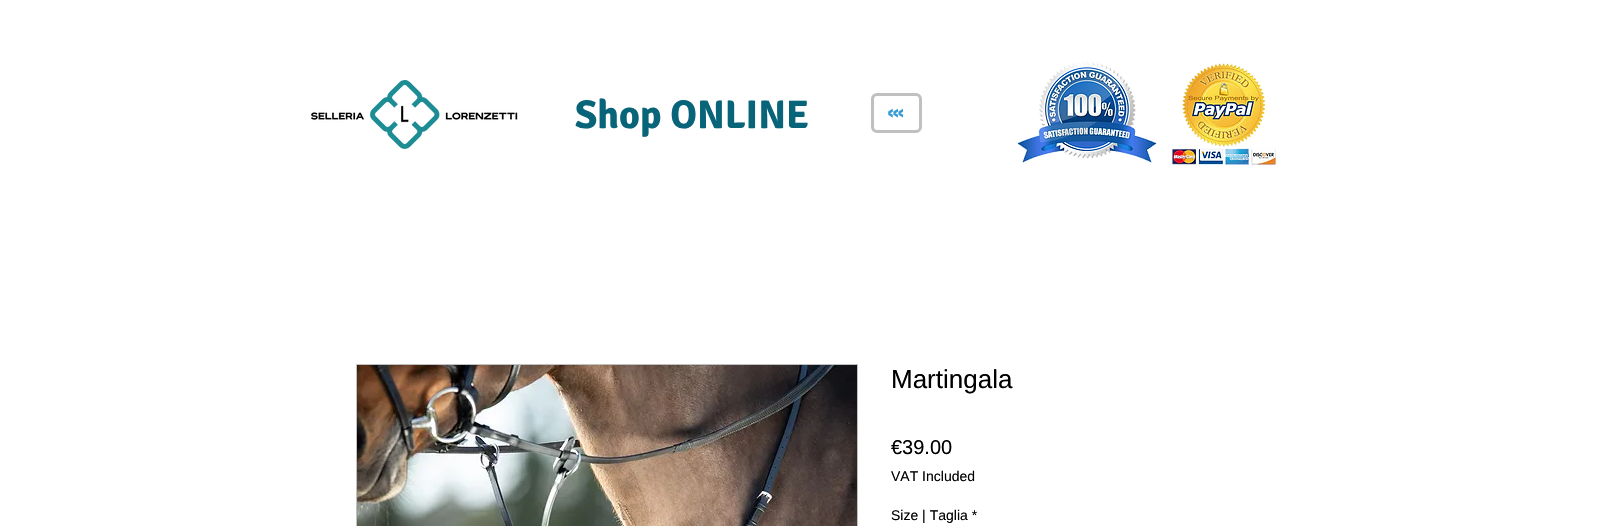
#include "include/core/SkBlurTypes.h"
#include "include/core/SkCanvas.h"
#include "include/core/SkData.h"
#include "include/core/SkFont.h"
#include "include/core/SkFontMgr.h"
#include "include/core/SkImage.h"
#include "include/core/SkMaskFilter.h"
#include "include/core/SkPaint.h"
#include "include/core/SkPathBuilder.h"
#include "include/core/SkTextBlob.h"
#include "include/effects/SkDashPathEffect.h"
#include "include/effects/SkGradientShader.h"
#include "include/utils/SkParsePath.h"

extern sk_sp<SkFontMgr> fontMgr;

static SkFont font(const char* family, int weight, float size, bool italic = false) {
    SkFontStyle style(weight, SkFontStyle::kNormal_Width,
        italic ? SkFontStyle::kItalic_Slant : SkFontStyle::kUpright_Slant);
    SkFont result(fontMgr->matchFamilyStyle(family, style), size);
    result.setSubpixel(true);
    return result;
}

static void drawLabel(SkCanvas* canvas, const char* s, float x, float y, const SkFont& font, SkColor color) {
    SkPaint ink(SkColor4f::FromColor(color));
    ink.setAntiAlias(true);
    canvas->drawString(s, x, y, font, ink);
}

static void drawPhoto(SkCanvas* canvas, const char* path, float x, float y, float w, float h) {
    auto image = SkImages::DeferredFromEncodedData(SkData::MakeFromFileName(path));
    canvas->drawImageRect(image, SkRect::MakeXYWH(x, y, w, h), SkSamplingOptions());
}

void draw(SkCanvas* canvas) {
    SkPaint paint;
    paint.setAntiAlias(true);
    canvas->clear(0xFFFFFFFF);
    drawPhoto(canvas, "assets/img1.png", 311, 80, 207, 69);
    SkFont font1 = font("Signika", 700, 40);
    drawLabel(canvas, "Shop ONLINE", 575, 128, font1, 0xFF086479);
    paint.setStroke(true);
    paint.setStrokeWidth(3);
    paint.setColor(0xFFC0C0C0);
    canvas->drawRoundRect(SkRect::MakeXYWH(872.5f, 94.5f, 48, 37), 4.5f, 4.5f, paint);
    SkFont font2 = font("Anton", 400, 16);
    drawLabel(canvas, "<<<", 888, 119, font2, 0xFF359CD6);
    drawPhoto(canvas, "assets/img2.png", 1172, 63, 104, 102);
    drawPhoto(canvas, "assets/img3.png", 1017, 61, 140, 102);
    paint.setStrokeWidth(1);
    canvas->drawRect(SkRect::MakeXYWH(356.5f, 364.5f, 501, 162), paint);
    drawPhoto(canvas, "assets/img4.png", 357, 365, 500, 161);
    SkFont font3 = font("Liberation Sans", 400, 26);
    drawLabel(canvas, "Martingala", 891, 388, font3, 0xFF000000);
    SkFont font4 = font("Liberation Sans", 400, 20);
    drawLabel(canvas, "€39.00", 891, 454, font4, 0xFF000000);
    SkFont font5 = font("Liberation Sans", 400, 14);
    drawLabel(canvas, "VAT Included", 891, 481, font5, 0xFF000000);
    drawLabel(canvas, "Size | Taglia *", 891, 520, font5, 0xFF000000);
}
